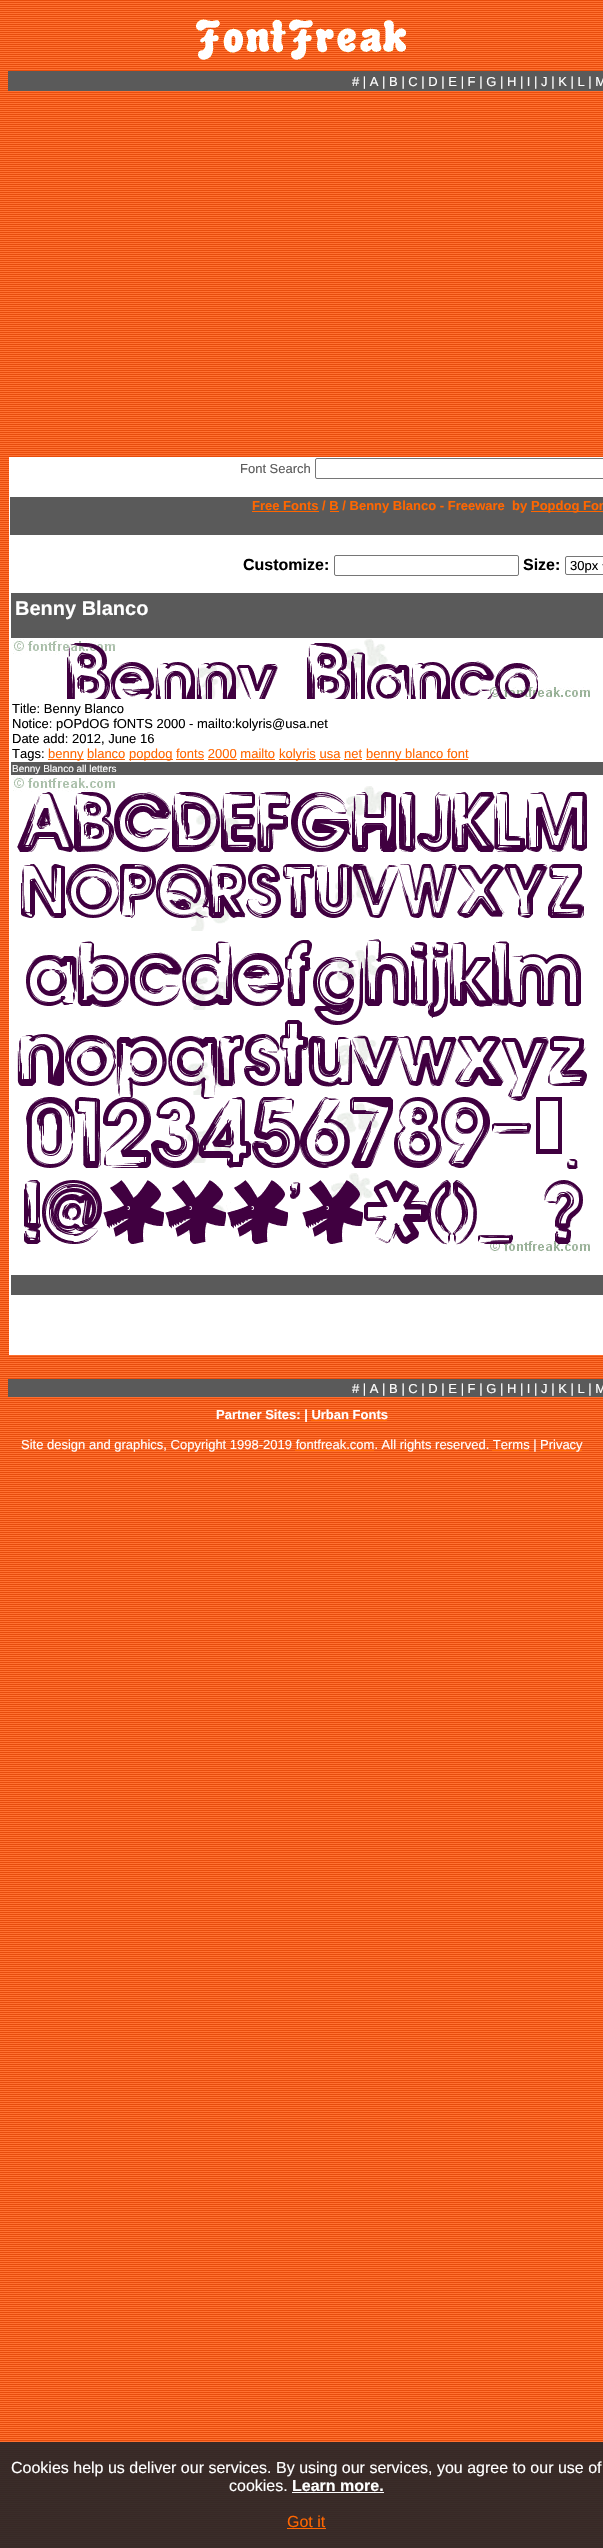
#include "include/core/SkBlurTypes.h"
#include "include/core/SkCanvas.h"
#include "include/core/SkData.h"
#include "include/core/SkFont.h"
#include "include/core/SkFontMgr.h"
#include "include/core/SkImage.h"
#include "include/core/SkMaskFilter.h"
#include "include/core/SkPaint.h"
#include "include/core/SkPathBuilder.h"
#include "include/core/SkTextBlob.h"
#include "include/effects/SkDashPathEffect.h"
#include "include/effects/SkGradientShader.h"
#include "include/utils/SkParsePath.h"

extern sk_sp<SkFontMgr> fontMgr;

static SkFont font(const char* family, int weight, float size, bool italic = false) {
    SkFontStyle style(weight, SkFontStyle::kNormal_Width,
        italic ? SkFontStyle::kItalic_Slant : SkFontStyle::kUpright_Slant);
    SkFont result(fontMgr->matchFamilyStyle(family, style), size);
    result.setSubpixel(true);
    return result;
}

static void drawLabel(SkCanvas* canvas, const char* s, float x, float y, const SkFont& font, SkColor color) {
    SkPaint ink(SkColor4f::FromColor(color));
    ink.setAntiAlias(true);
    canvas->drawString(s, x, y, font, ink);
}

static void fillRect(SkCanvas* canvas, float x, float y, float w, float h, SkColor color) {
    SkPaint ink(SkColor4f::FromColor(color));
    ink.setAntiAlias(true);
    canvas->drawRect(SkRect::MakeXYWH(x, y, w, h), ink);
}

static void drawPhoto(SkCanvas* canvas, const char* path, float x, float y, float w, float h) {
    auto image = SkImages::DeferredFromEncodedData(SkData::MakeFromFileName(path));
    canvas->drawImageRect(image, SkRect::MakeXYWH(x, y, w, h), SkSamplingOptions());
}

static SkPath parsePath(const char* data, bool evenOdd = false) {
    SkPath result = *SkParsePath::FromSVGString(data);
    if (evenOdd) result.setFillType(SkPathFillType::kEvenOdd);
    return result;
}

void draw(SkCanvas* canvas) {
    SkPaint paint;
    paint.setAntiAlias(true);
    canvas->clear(0xFFFFFFFF);
    drawPhoto(canvas, "assets/img1.png", 0, 0, 603, 2548);
    drawPhoto(canvas, "assets/img2.png", 196, 19, 211, 41);
    fillRect(canvas, 8, 71, 595, 20, 0xFF5A5A5A);
    SkFont font1 = font("Liberation Sans", 400, 13);
    drawLabel(canvas, "# | A | B | C | D | E | F | G | H | I | J | K | L | M", 352, 86, font1, 0xFFFFFFFF);
    fillRect(canvas, 9, 457, 594, 898, 0xFFFFFFFF);
    drawLabel(canvas, "Font Search", 240, 473, font1, 0xFF5A5A5A);
    paint.setStroke(true);
    paint.setStrokeWidth(1);
    paint.setColor(0xFF767676);
    canvas->drawRoundRect(SkRect::MakeXYWH(315.5f, 458.5f, 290, 20), 1.5f, 1.5f, paint);
    fillRect(canvas, 10, 497, 593, 38, 0xFF5A5A5A);
    fillRect(canvas, 252, 511, 67, 1, 0xFFFF6600);
    SkFont font2 = font("Liberation Sans", 700, 13);
    drawLabel(canvas, "Free Fonts / B / Benny Blanco - Freeware  by", 252, 510, font2, 0xFFFF6600);
    fillRect(canvas, 330, 511, 9, 1, 0xFFFF6600);
    fillRect(canvas, 531, 511, 72, 1, 0xFFFF6600);
    drawLabel(canvas, "Popdog Fon", 531, 510, font2, 0xFFFF6600);
    SkFont font3 = font("Liberation Sans", 700, 16);
    drawLabel(canvas, "Customize:", 243, 570, font3, 0xFF000000);
    canvas->drawRoundRect(SkRect::MakeXYWH(334.5f, 555.5f, 184, 20), 1.5f, 1.5f, paint);
    drawLabel(canvas, "Size:", 523, 570, font3, 0xFF000000);
    canvas->drawRoundRect(SkRect::MakeXYWH(565.5f, 556.5f, 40, 18), 1.5f, 1.5f, paint);
    paint.setStrokeWidth(2);
    paint.setColor(0xFF000000);
    canvas->drawPath(parsePath("M603 564L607 568L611 564"), paint);
    drawLabel(canvas, "30px", 570, 570, font1, 0xFF000000);
    fillRect(canvas, 11, 593, 592, 45, 0xFF5A5A5A);
    SkFont font4 = font("Liberation Sans", 700, 20);
    drawLabel(canvas, "Benny Blanco", 15, 615, font4, 0xFFFFFFFF);
    drawPhoto(canvas, "assets/img3.png", 13, 639, 577, 60);
    drawLabel(canvas, "Title: Benny Blanco", 12, 713, font1, 0xFF000000);
    drawLabel(canvas, "Notice: pOPdOG fONTS 2000 - mailto:kolyris@usa.net", 12, 728, font1, 0xFF000000);
    drawLabel(canvas, "Date add: 2012, June 16", 12, 743, font1, 0xFF000000);
    drawLabel(canvas, "Tags:", 12, 758, font1, 0xFF000000);
    fillRect(canvas, 48, 759, 36, 1, 0xFFFF6600);
    drawLabel(canvas, "benny blanco", 48, 758, font1, 0xFFFF6600);
    fillRect(canvas, 87, 759, 38, 1, 0xFFFF6600);
    fillRect(canvas, 129, 759, 44, 1, 0xFFFF6600);
    drawLabel(canvas, "popdog fonts 2000 mailto", 129, 758, font1, 0xFFFF6600);
    fillRect(canvas, 176, 759, 28, 1, 0xFFFF6600);
    fillRect(canvas, 208, 759, 29, 1, 0xFFFF6600);
    fillRect(canvas, 240, 759, 35, 1, 0xFFFF6600);
    fillRect(canvas, 279, 759, 37, 1, 0xFFFF6600);
    drawLabel(canvas, "kolyris usa net", 279, 758, font1, 0xFFFF6600);
    fillRect(canvas, 319, 759, 21, 1, 0xFFFF6600);
    fillRect(canvas, 344, 759, 18, 1, 0xFFFF6600);
    fillRect(canvas, 366, 759, 102, 1, 0xFFFF6600);
    drawLabel(canvas, "benny blanco font", 366, 758, font1, 0xFFFF6600);
    fillRect(canvas, 11, 762, 592, 13, 0xFF5A5A5A);
    SkFont font5 = font("Liberation Sans", 400, 10);
    drawLabel(canvas, "Benny Blanco all letters", 12, 772, font5, 0xFFFFFFFF);
    drawPhoto(canvas, "assets/img4.png", 13, 776, 577, 477);
    fillRect(canvas, 11, 1275, 592, 20, 0xFF5A5A5A);
    fillRect(canvas, 8, 1379, 595, 18, 0xFF5A5A5A);
    drawLabel(canvas, "# | A | B | C | D | E | F | G | H | I | J | K | L | M", 352, 1393, font1, 0xFFFFFFFF);
    drawLabel(canvas, "Partner Sites: | Urban Fonts", 216, 1419, font2, 0xFFFFFFFF);
    fillRect(canvas, 311, 1420, 76, 1, 0xFFFF6600);
    drawLabel(canvas, "Site design and graphics, Copyright 1998-2019 fontfreak.com. All rights reserved. Terms |", 21, 1449, font1, 0xFFFFFFFF);
    fillRect(canvas, 295, 1450, 79, 1, 0xFFFF6600);
    fillRect(canvas, 492, 1450, 37, 1, 0xFFFF6600);
    fillRect(canvas, 540, 1450, 42, 1, 0xFFFF6600);
    drawLabel(canvas, "Privacy", 540, 1449, font1, 0xFFFFFFFF);
    fillRect(canvas, 0, 2442, 603, 106, 0xE6252528);
    SkFont font6 = font("Liberation Sans", 400, 16);
    drawLabel(canvas, "Cookies help us deliver our services. By using our services, you agree to our use of", 11, 2473, font6, 0xFFFFFFFF);
    drawLabel(canvas, "cookies.", 229, 2491, font6, 0xFFFFFFFF);
    drawLabel(canvas, "Learn more.", 292, 2491, font3, 0xFFFFFFFF);
    fillRect(canvas, 292, 2492, 92, 1, 0xFFFFFFFF);
    drawLabel(canvas, "Got it", 287, 2527, font6, 0xFFFF6600);
    fillRect(canvas, 287, 2528, 39, 1, 0xFFFF6600);
}
